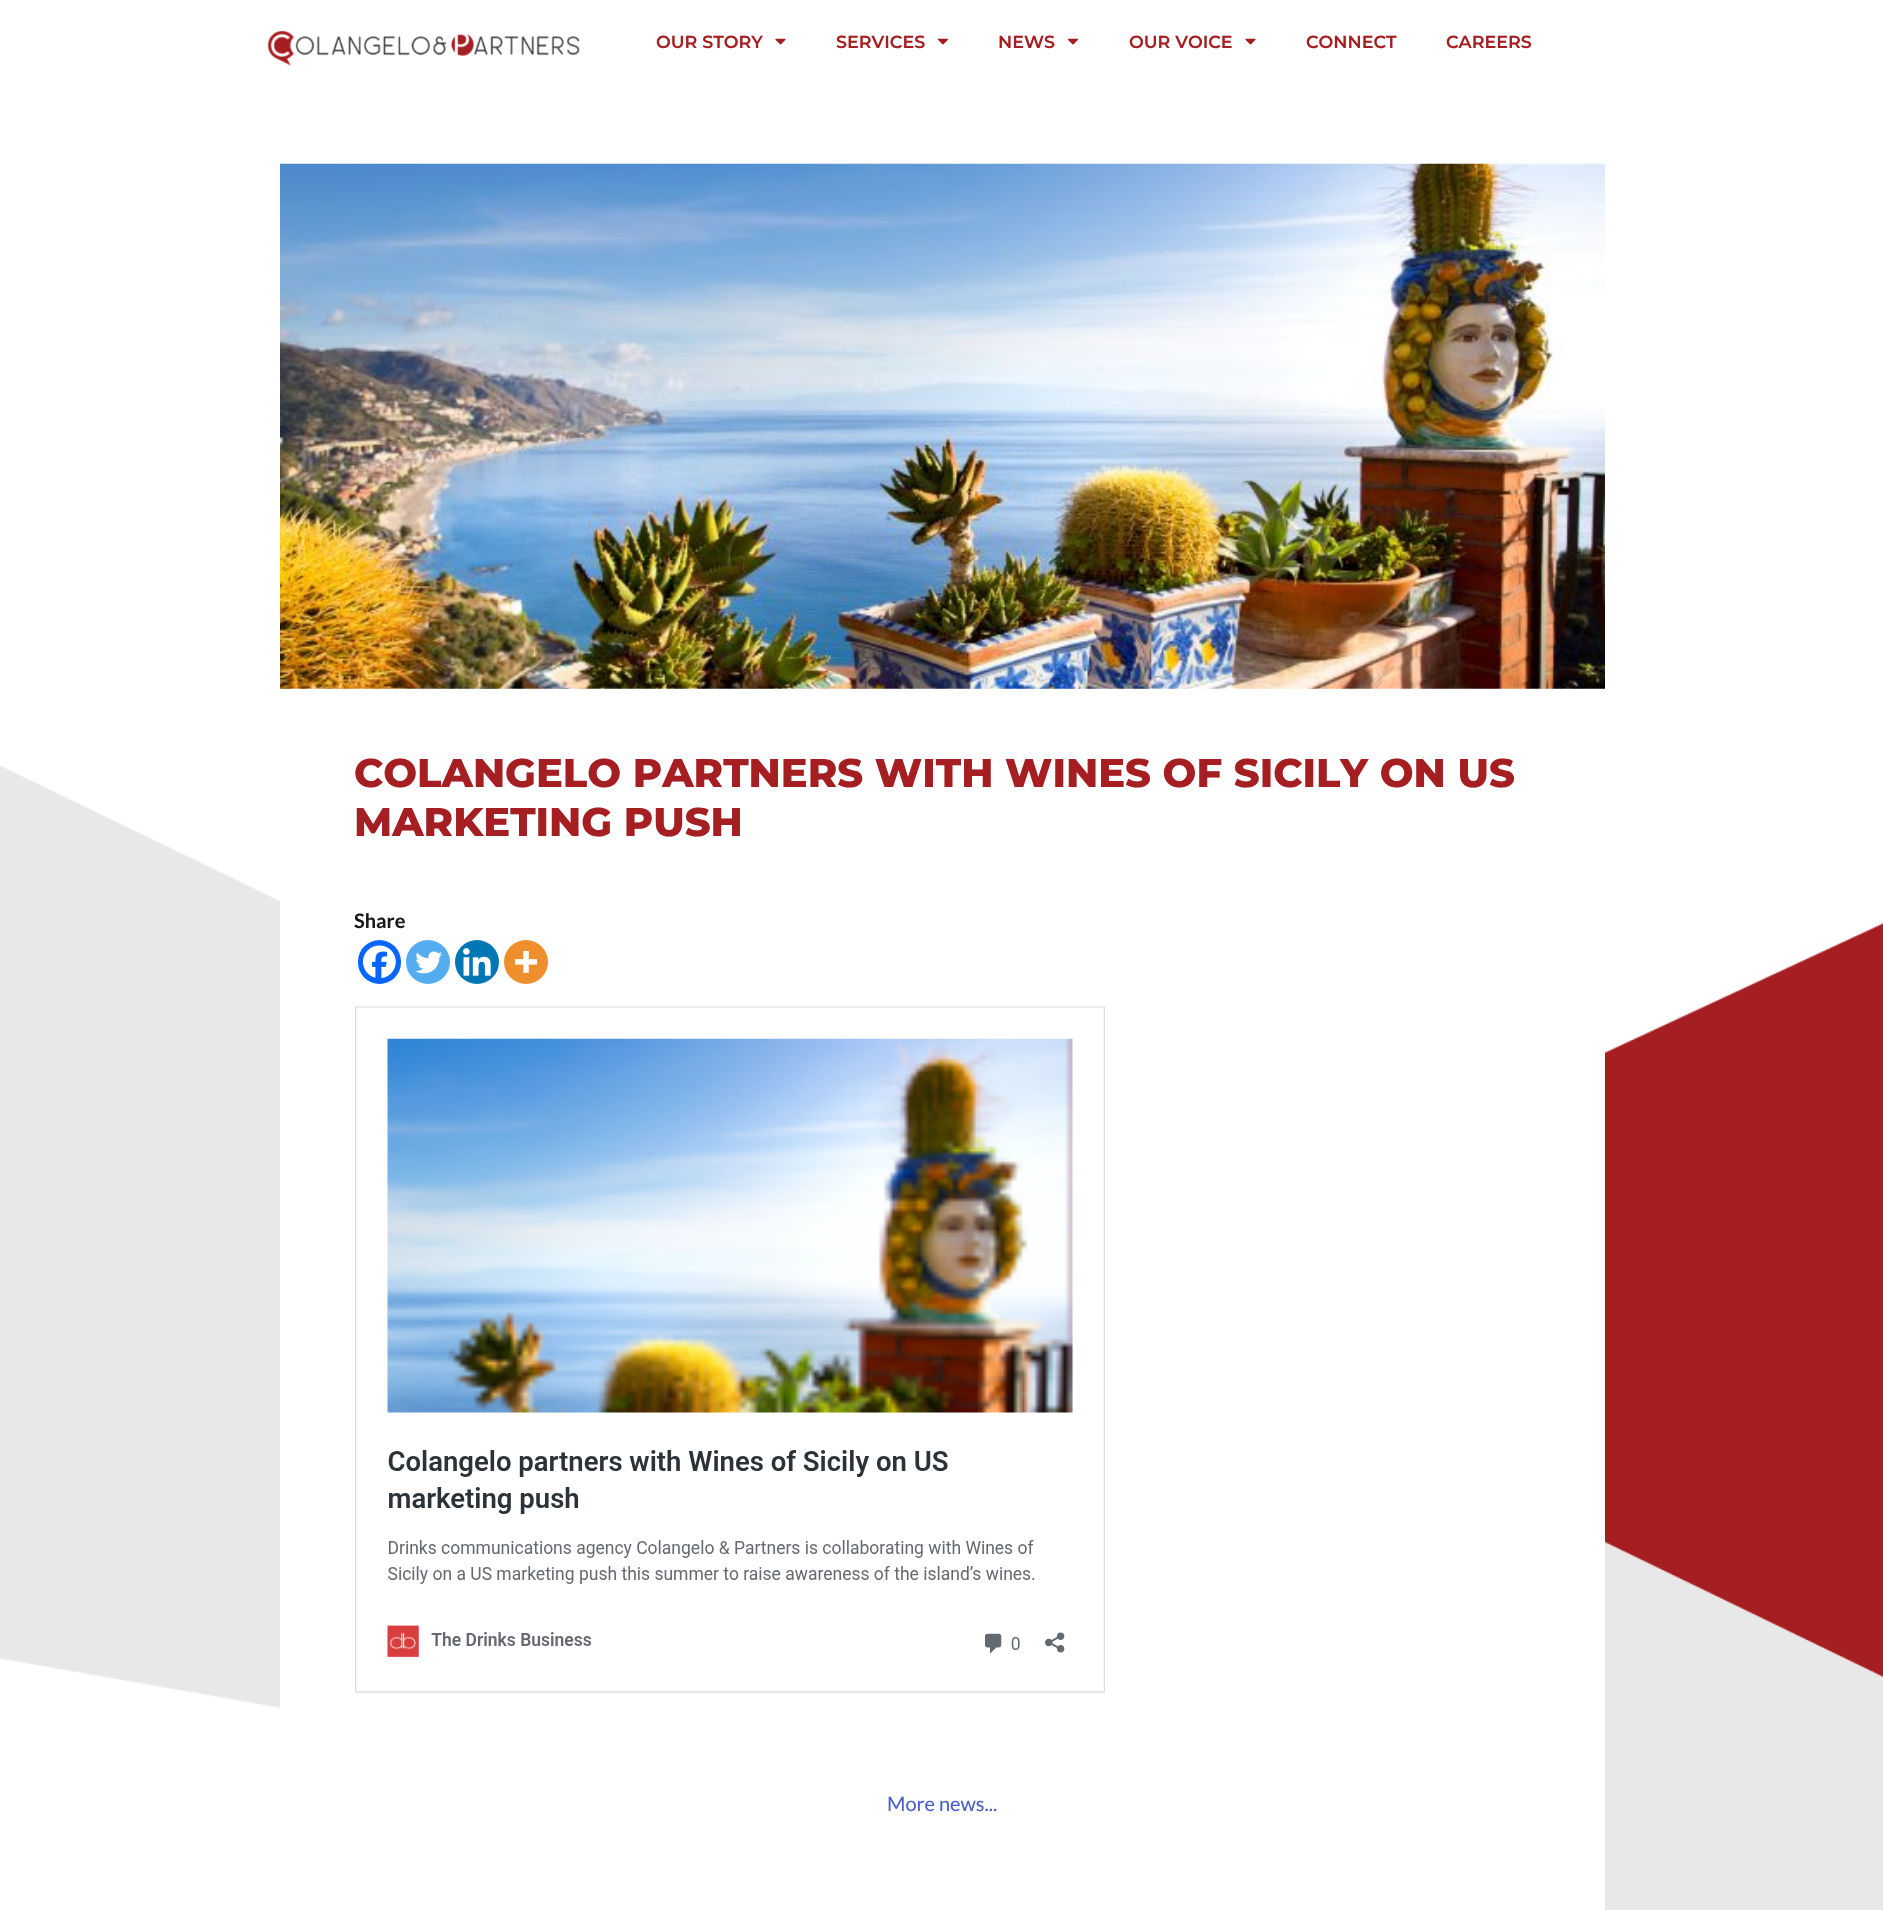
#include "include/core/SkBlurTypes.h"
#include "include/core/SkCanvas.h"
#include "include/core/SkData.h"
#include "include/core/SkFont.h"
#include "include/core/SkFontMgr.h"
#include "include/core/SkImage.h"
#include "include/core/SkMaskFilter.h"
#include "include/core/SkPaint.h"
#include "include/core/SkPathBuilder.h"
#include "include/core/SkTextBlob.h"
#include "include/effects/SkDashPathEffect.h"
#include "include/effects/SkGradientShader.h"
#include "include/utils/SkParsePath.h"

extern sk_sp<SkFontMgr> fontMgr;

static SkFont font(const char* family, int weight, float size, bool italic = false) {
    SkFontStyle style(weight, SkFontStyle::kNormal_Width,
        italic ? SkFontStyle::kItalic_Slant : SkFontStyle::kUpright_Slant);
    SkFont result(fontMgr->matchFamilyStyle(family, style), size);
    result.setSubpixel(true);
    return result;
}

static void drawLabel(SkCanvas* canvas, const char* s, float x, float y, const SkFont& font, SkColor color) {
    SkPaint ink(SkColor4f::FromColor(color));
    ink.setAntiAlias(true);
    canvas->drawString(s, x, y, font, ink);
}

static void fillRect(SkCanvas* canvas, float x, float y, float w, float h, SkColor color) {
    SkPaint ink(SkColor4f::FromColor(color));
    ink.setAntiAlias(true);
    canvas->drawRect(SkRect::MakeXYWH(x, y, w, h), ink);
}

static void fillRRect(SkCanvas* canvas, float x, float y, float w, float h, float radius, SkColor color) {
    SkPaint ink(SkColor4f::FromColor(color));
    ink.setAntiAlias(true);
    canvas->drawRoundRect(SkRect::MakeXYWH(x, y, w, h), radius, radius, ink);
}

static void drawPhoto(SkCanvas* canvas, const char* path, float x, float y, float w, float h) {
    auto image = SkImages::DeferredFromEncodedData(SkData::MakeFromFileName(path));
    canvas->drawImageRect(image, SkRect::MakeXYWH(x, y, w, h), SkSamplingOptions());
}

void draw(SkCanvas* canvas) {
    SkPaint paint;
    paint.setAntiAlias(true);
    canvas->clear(0xFFFFFFFF);
    drawPhoto(canvas, "assets/img1.png", 0, 765, 1883, 1145);
    drawPhoto(canvas, "assets/img2.png", 267, 30, 313, 36);
    SkFont font1 = font("Montserrat", 600, 17.5f);
    drawLabel(canvas, "OUR STORY", 656, 48, font1, 0xFFA51E22);
    drawPhoto(canvas, "assets/img3.png", 775, 38, 11, 7);
    drawLabel(canvas, "SERVICES", 836, 48, font1, 0xFFA51E22);
    drawPhoto(canvas, "assets/img4.png", 937, 38, 11, 7);
    drawLabel(canvas, "NEWS", 998, 48, font1, 0xFFA51E22);
    drawPhoto(canvas, "assets/img4.png", 1067, 38, 11, 7);
    drawLabel(canvas, "OUR VOICE", 1129, 48, font1, 0xFFA51E22);
    drawPhoto(canvas, "assets/img3.png", 1245, 38, 11, 7);
    drawLabel(canvas, "CONNECT", 1306, 48, font1, 0xFFA51E22);
    drawLabel(canvas, "CAREERS", 1446, 48, font1, 0xFFA51E22);
    drawPhoto(canvas, "assets/img5.png", 280, 163, 1325, 526);
    fillRect(canvas, 280, 901, 1325, 1009, 0xFFFFFFFF);
    SkFont font2 = font("Montserrat", 800, 40);
    drawLabel(canvas, "COLANGELO PARTNERS WITH WINES OF SICILY ON US", 354, 787, font2, 0xFFA51E22);
    drawLabel(canvas, "MARKETING PUSH", 354, 836, font2, 0xFFA51E22);
    SkFont font3 = font("Lato", 700, 20);
    drawLabel(canvas, "Share", 354, 928, font3, 0xFF1A1A1A);
    fillRRect(canvas, 358, 940, 43, 44, 21.5f, 0xFF0765FE);
    drawPhoto(canvas, "assets/img6.png", 363, 945, 33, 34);
    paint.setColor(0xFF55ACEE);
    canvas->drawCircle(428, 962, 22, paint);
    drawPhoto(canvas, "assets/img7.png", 415, 951, 27, 23);
    paint.setColor(0xFF0077B5);
    canvas->drawCircle(477, 962, 22, paint);
    drawPhoto(canvas, "assets/img8.png", 463, 948, 28, 28);
    paint.setColor(0xFFEE8E2D);
    canvas->drawCircle(526, 962, 22, paint);
    drawPhoto(canvas, "assets/img9.png", 515, 950, 22, 23);
    drawPhoto(canvas, "assets/img10.png", 355, 1006, 750, 688);
    SkFont font4 = font("Lato", 400, 20);
    drawLabel(canvas, "More news...", 887, 1811, font4, 0xFF485FC7);
}
